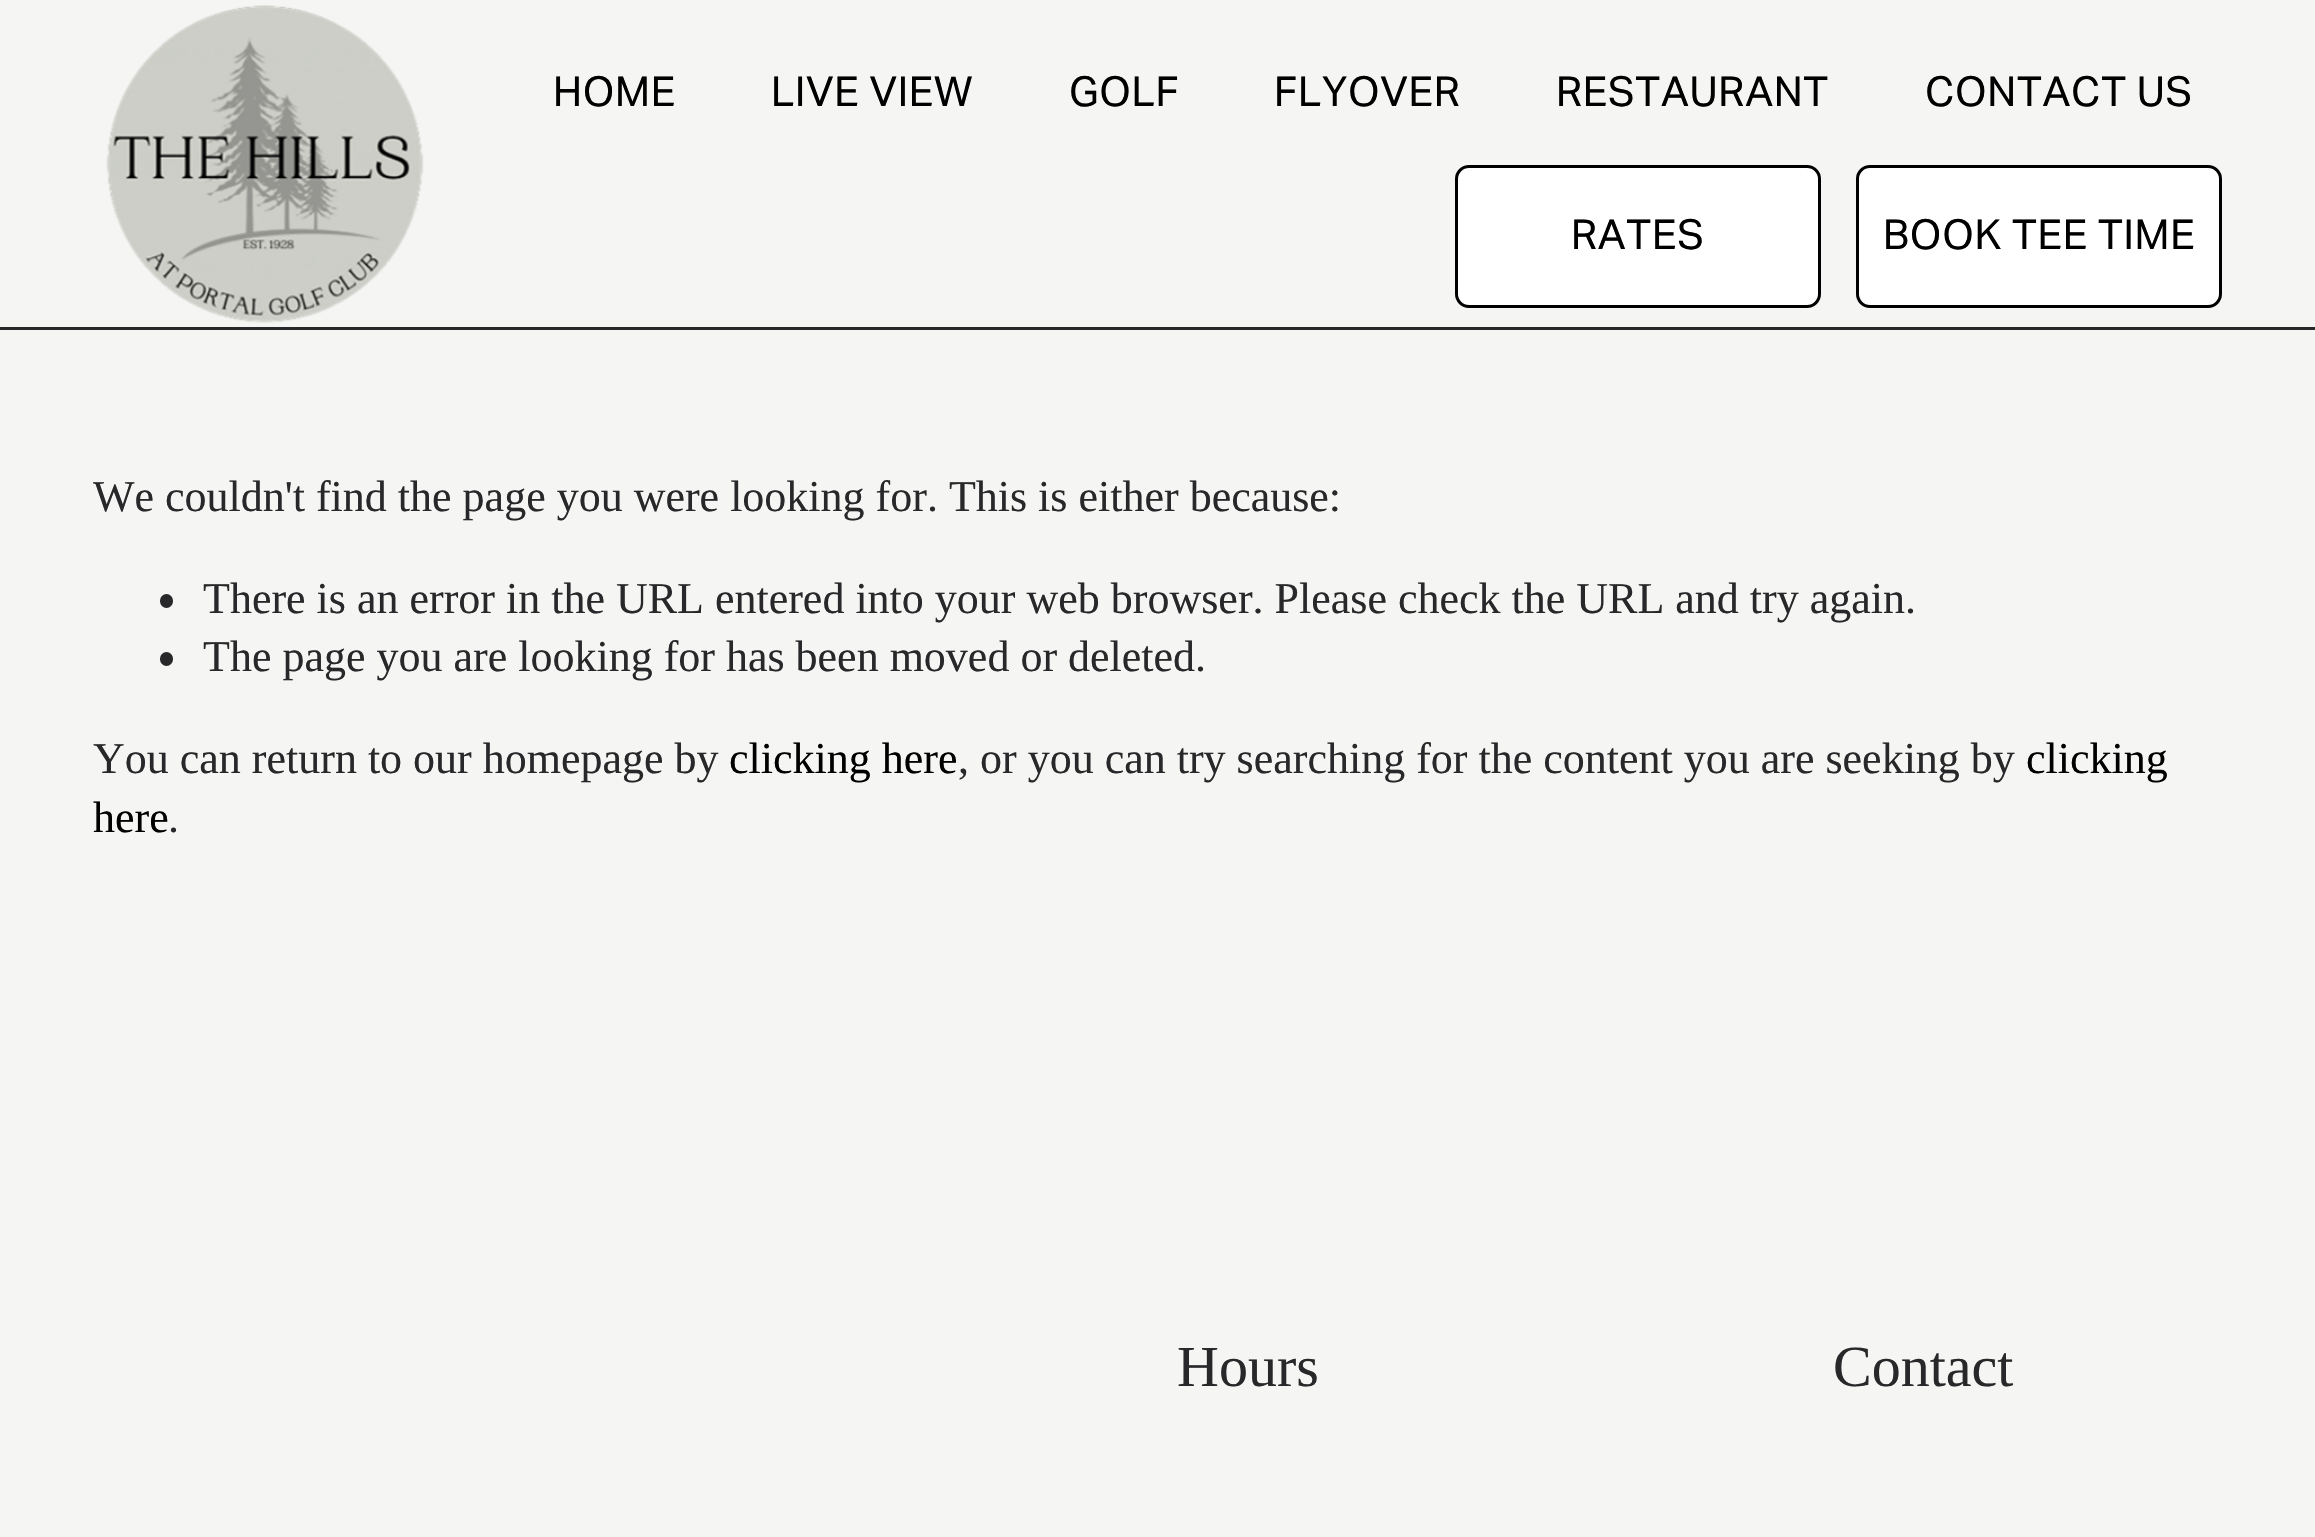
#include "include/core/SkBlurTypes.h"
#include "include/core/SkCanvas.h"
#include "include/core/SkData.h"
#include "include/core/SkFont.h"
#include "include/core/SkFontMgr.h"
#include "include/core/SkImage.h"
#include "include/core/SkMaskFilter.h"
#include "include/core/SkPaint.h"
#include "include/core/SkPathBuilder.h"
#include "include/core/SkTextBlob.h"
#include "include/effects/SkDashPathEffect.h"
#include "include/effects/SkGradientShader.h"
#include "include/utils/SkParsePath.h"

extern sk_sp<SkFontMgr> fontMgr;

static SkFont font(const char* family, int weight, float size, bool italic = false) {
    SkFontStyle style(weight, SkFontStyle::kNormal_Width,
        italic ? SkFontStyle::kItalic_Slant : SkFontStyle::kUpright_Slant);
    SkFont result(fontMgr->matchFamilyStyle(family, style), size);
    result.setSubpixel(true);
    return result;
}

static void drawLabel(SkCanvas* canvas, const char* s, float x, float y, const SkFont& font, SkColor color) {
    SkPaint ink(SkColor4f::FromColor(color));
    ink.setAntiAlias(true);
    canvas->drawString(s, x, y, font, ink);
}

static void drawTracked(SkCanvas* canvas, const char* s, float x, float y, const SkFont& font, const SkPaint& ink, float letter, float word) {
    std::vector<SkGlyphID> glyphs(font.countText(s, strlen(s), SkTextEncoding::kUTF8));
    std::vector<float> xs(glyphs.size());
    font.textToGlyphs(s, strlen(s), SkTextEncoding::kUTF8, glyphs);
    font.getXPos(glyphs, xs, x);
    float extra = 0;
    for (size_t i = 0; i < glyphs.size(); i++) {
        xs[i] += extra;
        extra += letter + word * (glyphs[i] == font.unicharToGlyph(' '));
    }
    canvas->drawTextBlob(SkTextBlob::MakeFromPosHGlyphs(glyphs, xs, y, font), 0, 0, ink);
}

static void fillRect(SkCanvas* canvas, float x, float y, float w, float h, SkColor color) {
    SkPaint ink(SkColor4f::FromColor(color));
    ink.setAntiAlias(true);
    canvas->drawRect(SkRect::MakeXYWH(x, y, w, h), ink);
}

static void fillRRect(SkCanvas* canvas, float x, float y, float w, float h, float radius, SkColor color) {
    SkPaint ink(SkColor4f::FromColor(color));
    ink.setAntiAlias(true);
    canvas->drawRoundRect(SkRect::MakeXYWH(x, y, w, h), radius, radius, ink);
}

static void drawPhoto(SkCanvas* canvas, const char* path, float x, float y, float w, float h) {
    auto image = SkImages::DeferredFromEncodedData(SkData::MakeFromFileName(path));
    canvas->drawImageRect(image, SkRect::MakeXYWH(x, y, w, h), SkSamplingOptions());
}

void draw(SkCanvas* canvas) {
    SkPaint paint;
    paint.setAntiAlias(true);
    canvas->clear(0xFFF5F5F3);
    drawPhoto(canvas, "assets/img1.png", 106, 5, 318, 318);
    SkFont font1 = font("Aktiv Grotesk", 400, 41.25f);
    paint.setColor(0xFF000000);
    drawTracked(canvas, "HOME", 553, 106, font1, paint, 0.75f, 0);
    drawTracked(canvas, "LIVE VIEW", 771, 106, font1, paint, 0.75f, 0);
    drawTracked(canvas, "GOLF", 1069, 106, font1, paint, 0.75f, 0);
    drawTracked(canvas, "FLYOVER", 1274, 106, font1, paint, 0.75f, 0);
    drawTracked(canvas, "RESTAURANT", 1556, 106, font1, paint, 0.75f, 0);
    drawTracked(canvas, "CONTACT US", 1925, 106, font1, paint, 0.75f, 0);
    paint.setColor(0xFFFFFFFF);
    canvas->drawRoundRect(SkRect::MakeXYWH(1456.5f, 166.5f, 363, 140), 12.5f, 12.5f, paint);
    paint.setStroke(true);
    paint.setStrokeWidth(3);
    paint.setColor(0xFF000000);
    canvas->drawRoundRect(SkRect::MakeXYWH(1456.5f, 166.5f, 363, 140), 12.5f, 12.5f, paint);
    paint.setStroke(false);
    drawTracked(canvas, "RATES", 1571, 249, font1, paint, 0.75f, 0);
    paint.setColor(0xFFFFFFFF);
    canvas->drawRoundRect(SkRect::MakeXYWH(1857.5f, 166.5f, 363, 140), 12.5f, 12.5f, paint);
    paint.setStroke(true);
    paint.setColor(0xFF000000);
    canvas->drawRoundRect(SkRect::MakeXYWH(1857.5f, 166.5f, 363, 140), 12.5f, 12.5f, paint);
    paint.setStroke(false);
    drawTracked(canvas, "BOOK TEE TIME", 1883, 249, font1, paint, 0.75f, 0);
    fillRect(canvas, 0, 327, 2315, 3, 0xFF28282A);
    SkFont font2 = font("Liberation Serif", 400, 44);
    drawLabel(canvas, "We couldn't find the page you were looking for. This is either because:", 93, 511, font2, 0xFF28282A);
    fillRRect(canvas, 160, 594, 13, 14, 6.5f, 0xFF28282A);
    drawLabel(canvas, "There is an error in the URL entered into your web browser. Please check the URL and try again.", 203, 613, font2, 0xFF28282A);
    fillRRect(canvas, 160, 652, 13, 14, 6.5f, 0xFF28282A);
    drawLabel(canvas, "The page you are looking for has been moved or deleted.", 203, 671, font2, 0xFF28282A);
    drawLabel(canvas, "You can return to our homepage by", 93, 773, font2, 0xFF28282A);
    drawLabel(canvas, "clicking here", 729, 773, font2, 0xFF000000);
    drawLabel(canvas, ", or you can try searching for the content you are seeking by", 958, 773, font2, 0xFF28282A);
    drawLabel(canvas, "clicking", 2026, 773, font2, 0xFF000000);
    drawLabel(canvas, "here", 93, 832, font2, 0xFF000000);
    drawLabel(canvas, ".", 168, 832, font2, 0xFF28282A);
    SkFont font3 = font("Liberation Serif", 400, 58);
    drawLabel(canvas, "Hours", 1177, 1386, font3, 0xFF28282A);
    drawLabel(canvas, "Contact", 1833, 1386, font3, 0xFF28282A);
}
